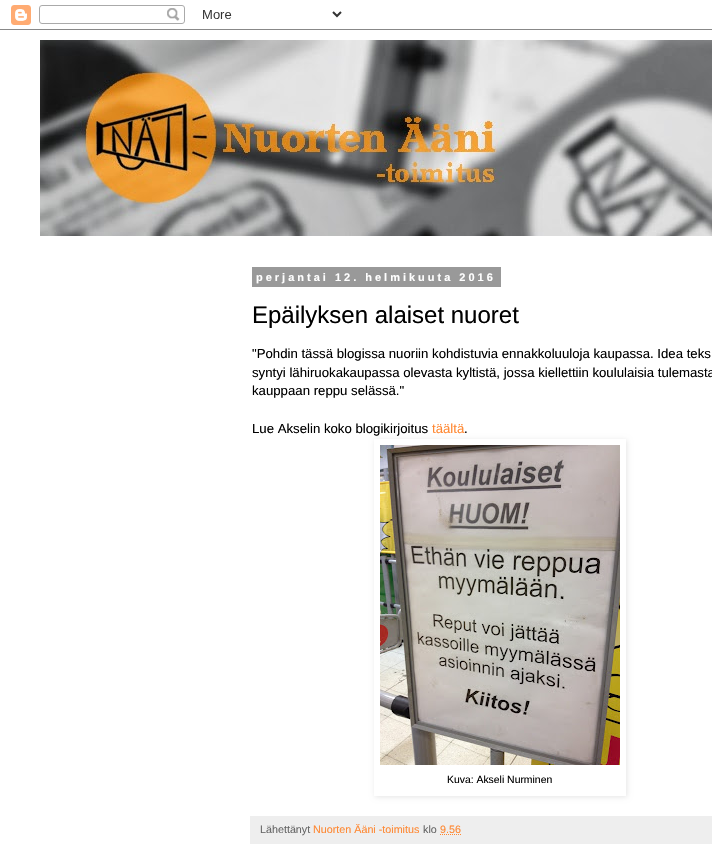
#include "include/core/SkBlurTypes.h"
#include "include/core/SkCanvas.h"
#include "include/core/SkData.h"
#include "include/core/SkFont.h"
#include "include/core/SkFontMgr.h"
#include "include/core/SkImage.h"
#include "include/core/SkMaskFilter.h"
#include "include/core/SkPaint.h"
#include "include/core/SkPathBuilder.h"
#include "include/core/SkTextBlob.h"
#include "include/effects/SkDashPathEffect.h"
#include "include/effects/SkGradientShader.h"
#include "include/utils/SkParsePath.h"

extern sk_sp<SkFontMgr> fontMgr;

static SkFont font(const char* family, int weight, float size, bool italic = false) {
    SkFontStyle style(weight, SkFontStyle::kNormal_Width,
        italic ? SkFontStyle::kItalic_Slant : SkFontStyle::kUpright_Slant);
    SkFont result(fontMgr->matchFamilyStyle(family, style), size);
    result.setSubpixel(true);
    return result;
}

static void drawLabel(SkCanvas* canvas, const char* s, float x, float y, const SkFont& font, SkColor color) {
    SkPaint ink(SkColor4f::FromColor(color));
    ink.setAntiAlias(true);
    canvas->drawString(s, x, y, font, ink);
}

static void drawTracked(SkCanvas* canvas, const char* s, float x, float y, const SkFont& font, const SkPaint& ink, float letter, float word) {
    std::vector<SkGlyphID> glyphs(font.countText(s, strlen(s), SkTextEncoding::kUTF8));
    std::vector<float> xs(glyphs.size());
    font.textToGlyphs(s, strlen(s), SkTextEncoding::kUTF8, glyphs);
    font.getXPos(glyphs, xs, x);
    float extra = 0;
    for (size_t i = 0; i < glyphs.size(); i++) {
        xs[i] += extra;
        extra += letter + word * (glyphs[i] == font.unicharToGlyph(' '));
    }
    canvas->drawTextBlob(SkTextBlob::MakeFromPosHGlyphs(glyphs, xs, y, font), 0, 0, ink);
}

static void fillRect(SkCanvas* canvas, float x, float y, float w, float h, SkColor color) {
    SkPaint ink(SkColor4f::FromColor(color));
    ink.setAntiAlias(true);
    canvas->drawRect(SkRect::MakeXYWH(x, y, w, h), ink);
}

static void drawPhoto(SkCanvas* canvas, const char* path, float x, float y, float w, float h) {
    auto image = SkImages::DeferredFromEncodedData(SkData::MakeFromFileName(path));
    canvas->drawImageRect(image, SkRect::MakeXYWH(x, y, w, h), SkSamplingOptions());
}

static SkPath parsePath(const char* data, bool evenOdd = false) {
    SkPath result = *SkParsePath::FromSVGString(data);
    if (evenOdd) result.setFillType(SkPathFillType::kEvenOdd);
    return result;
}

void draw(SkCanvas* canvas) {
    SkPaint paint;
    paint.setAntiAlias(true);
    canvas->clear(0xFFFFFFFF);
    drawPhoto(canvas, "assets/img1.png", 0, 5, 712, 25);
    drawPhoto(canvas, "assets/img2.png", 40, 40, 672, 196);
    fillRect(canvas, 252, 267, 249, 20, 0xFF999999);
    SkFont font1 = font("Liberation Sans", 700, 11);
    paint.setColor(0xFFFFFFFF);
    drawTracked(canvas, "perjantai 12. helmikuuta 2016", 256, 281, font1, paint, 3, 0);
    SkFont font2 = font("Liberation Sans", 400, 24);
    drawLabel(canvas, "Epäilyksen alaiset nuoret", 252, 323, font2, 0xFF000000);
    SkFont font3 = font("Liberation Sans", 400, 13.2f);
    drawLabel(canvas, "\"Pohdin tässä blogissa nuoriin kohdistuvia ennakkoluuloja kaupassa. Idea teks", 252, 358, font3, 0xFF000000);
    drawLabel(canvas, "syntyi lähiruokakaupassa olevasta kyltistä, jossa kiellettiin koululaisia tulemasta", 252, 377, font3, 0xFF000000);
    drawLabel(canvas, "kauppaan reppu selässä.\"", 252, 395, font3, 0xFF000000);
    drawLabel(canvas, "Lue Akselin koko blogikirjoitus", 252, 433, font3, 0xFF000000);
    drawLabel(canvas, "täältä", 432, 433, font3, 0xFFFF8832);
    drawLabel(canvas, ".", 464, 433, font3, 0xFF000000);
    canvas->save();
    canvas->clipPath(parsePath("M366 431H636V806H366ZM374 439H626V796H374Z", true), true);
    paint.setColor(0x1A000000);
    paint.setMaskFilter(SkMaskFilter::MakeBlur(kNormal_SkBlurStyle, 2.5f));
    canvas->drawRect(SkRect::MakeXYWH(375, 440, 252, 357), paint);
    paint.setMaskFilter(nullptr);
    canvas->restore();
    drawPhoto(canvas, "assets/img3.png", 380, 445, 240, 320);
    SkFont font4 = font("Liberation Sans", 400, 10.4f);
    drawLabel(canvas, "Kuva: Akseli Nurminen", 447, 783, font4, 0xFF000000);
    fillRect(canvas, 250, 816, 462, 28, 0xFFEEEEEE);
    SkFont font5 = font("Liberation Sans", 400, 10.75f);
    drawLabel(canvas, "Lähettänyt", 260, 833, font5, 0xFF666666);
    drawLabel(canvas, "Nuorten Ääni -toimitus", 313, 833, font5, 0xFFFF8832);
    drawLabel(canvas, "klo", 423, 833, font5, 0xFF666666);
    drawLabel(canvas, "9.56", 440, 833, font5, 0xFFFF8832);
    paint.setStroke(true);
    paint.setStrokeWidth(1);
    paint.setColor(0xFFFF8832);
    paint.setPathEffect(SkDashPathEffect::Make({{1, 1}}, 0));
    canvas->drawPath(parsePath("M440 834.5H461"), paint);
    paint.setPathEffect(nullptr);
}
